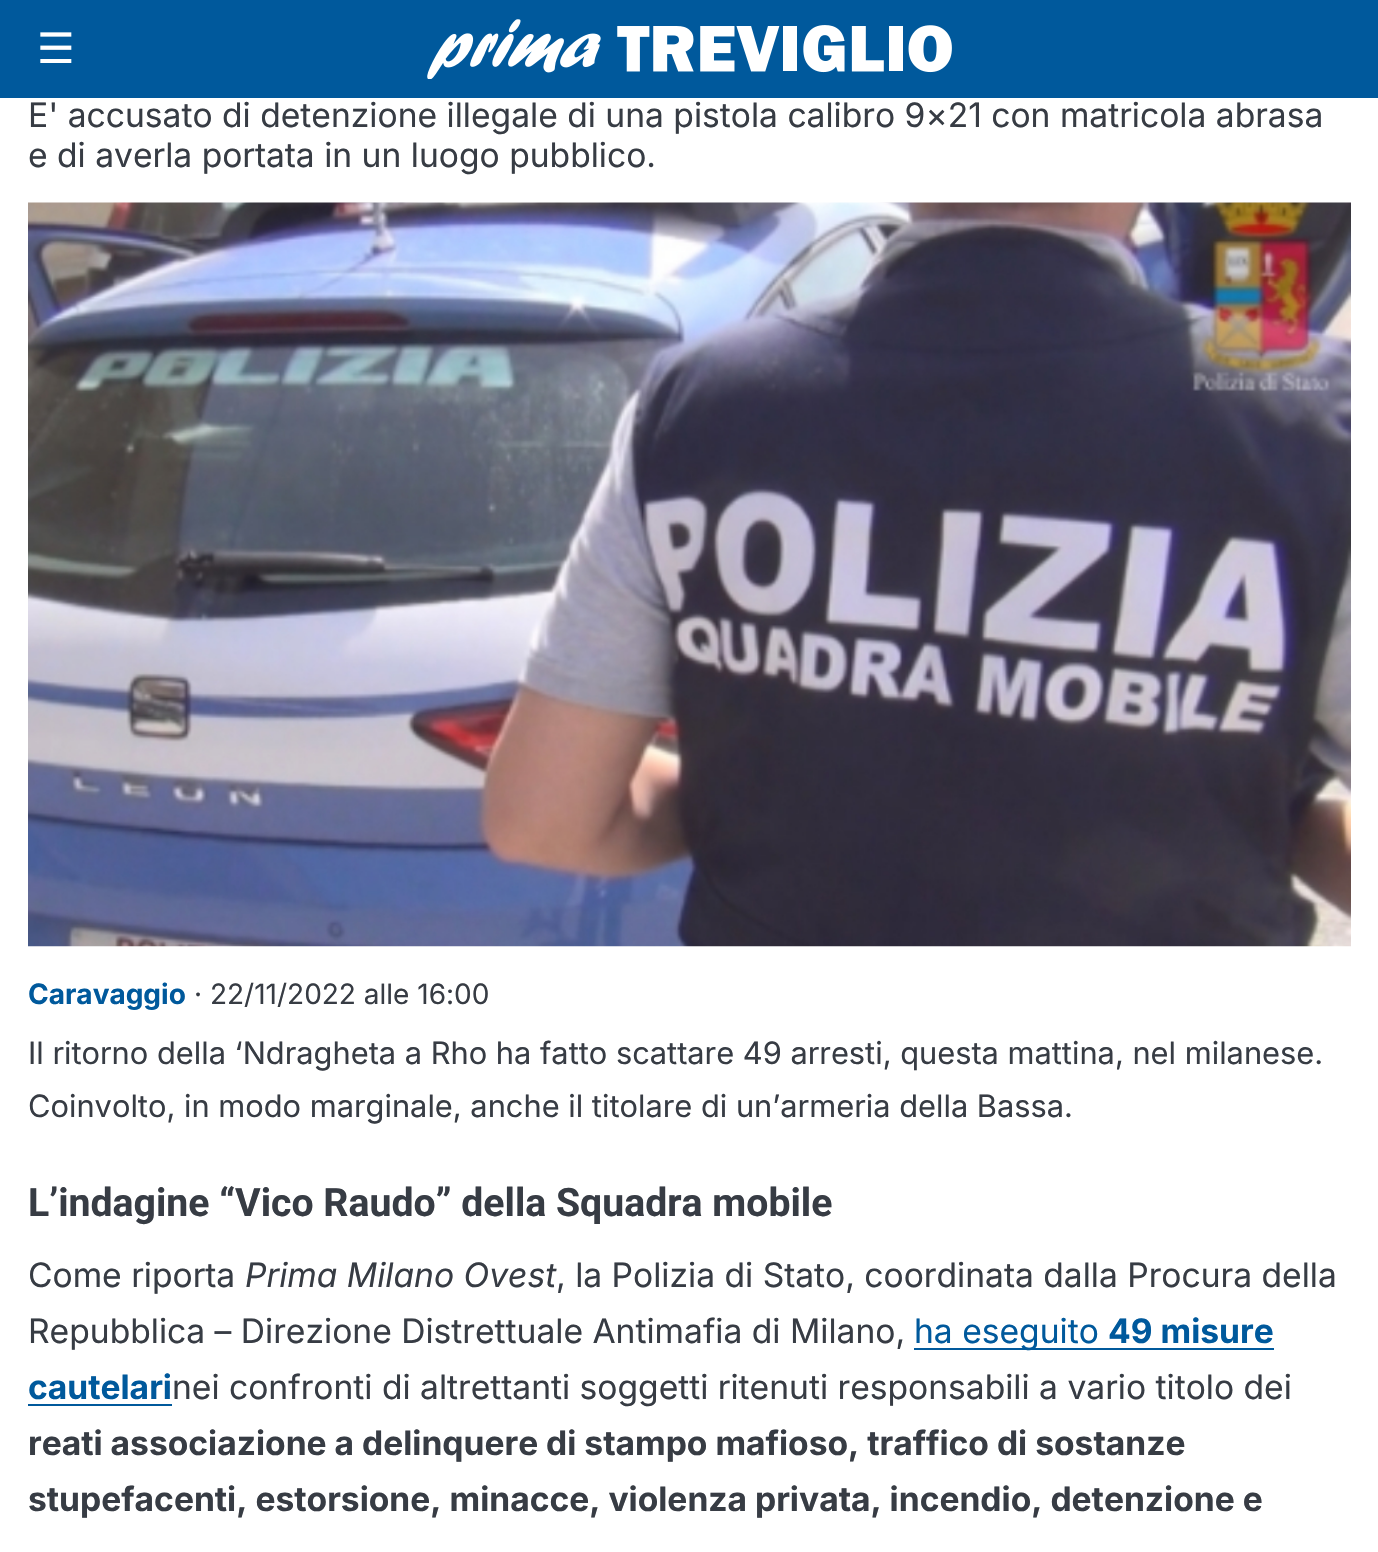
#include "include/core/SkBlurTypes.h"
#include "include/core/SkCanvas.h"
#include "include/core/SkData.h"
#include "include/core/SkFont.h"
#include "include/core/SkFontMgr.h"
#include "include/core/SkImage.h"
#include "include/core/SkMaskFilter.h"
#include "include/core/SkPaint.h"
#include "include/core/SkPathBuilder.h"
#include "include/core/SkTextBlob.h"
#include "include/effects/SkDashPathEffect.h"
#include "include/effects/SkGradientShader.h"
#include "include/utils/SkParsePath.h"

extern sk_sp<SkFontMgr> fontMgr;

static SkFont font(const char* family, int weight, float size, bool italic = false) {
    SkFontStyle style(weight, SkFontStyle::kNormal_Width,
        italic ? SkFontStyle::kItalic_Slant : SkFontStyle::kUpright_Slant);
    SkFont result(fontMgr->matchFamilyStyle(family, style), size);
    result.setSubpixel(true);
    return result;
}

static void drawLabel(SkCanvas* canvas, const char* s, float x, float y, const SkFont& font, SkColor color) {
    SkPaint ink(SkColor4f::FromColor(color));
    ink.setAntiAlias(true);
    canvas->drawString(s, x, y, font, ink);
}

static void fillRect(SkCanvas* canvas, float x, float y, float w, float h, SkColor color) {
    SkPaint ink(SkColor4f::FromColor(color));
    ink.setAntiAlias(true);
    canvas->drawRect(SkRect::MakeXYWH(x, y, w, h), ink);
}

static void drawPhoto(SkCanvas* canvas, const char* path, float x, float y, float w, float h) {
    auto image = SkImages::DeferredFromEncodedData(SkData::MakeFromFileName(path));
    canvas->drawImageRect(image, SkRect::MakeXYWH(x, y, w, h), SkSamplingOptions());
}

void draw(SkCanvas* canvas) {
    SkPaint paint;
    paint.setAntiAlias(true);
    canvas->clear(0xFFFFFFFF);
    fillRect(canvas, 0, 0, 1378, 98, 0xFF00599C);
    SkFont font1 = font("DejaVu Sans", 400, 42);
    drawLabel(canvas, "☰", 37, 63, font1, 0xFFFFFFFF);
    drawPhoto(canvas, "assets/img1.png", 427, 19, 525, 60);
    SkFont font2 = font("Inter", 400, 33.6f);
    drawLabel(canvas, "E' accusato di detenzione illegale di una pistola calibro 9×21 con matricola abrasa", 28, 127, font2, 0xFF373C44);
    drawLabel(canvas, "e di averla portata in un luogo pubblico.", 28, 167, font2, 0xFF373C44);
    drawPhoto(canvas, "assets/img2.png", 28, 202, 1323, 745);
    SkFont font3 = font("Inter", 700, 28);
    drawLabel(canvas, "Caravaggio", 28, 1004, font3, 0xFF00599C);
    SkFont font4 = font("Inter", 400, 28);
    drawLabel(canvas, "· 22/11/2022 alle 16:00", 194, 1004, font4, 0xFF373C44);
    SkFont font5 = font("Inter", 400, 30.8f);
    drawLabel(canvas, "Il ritorno della ‘Ndragheta a Rho ha fatto scattare 49 arresti, questa mattina, nel milanese.", 28, 1064, font5, 0xFF373C44);
    drawLabel(canvas, "Coinvolto, in modo marginale, anche il titolare di un’armeria della Bassa.", 28, 1117, font5, 0xFF373C44);
    SkFont font6 = font("Roboto", 700, 39.2f);
    drawLabel(canvas, "L’indagine “Vico Raudo” della Squadra mobile", 28, 1216, font6, 0xFF373C44);
    drawLabel(canvas, "Come riporta", 28, 1287, font2, 0xFF373C44);
    SkFont font7 = font("Inter", 400, 33.6f, true);
    drawLabel(canvas, "Prima Milano Ovest", 245, 1287, font7, 0xFF373C44);
    drawLabel(canvas, ", la Polizia di Stato, coordinata dalla Procura della", 556, 1287, font2, 0xFF373C44);
    drawLabel(canvas, "Repubblica – Direzione Distrettuale Antimafia di Milano,", 28, 1343, font2, 0xFF373C44);
    fillRect(canvas, 914, 1348, 360, 2, 0xFF00599C);
    drawLabel(canvas, "ha eseguito", 914, 1343, font2, 0xFF00599C);
    SkFont font8 = font("Inter", 700, 33.6f);
    drawLabel(canvas, "49 misure", 1108, 1343, font8, 0xFF00599C);
    drawLabel(canvas, "cautelari", 28, 1399, font8, 0xFF00599C);
    fillRect(canvas, 28, 1404, 144, 2, 0xFF00599C);
    drawLabel(canvas, "nei confronti di altrettanti soggetti ritenuti responsabili a vario titolo dei", 172, 1399, font2, 0xFF373C44);
    drawLabel(canvas, "reati associazione a delinquere di stampo mafioso, traffico di sostanze", 28, 1455, font8, 0xFF373C44);
    drawLabel(canvas, "stupefacenti, estorsione, minacce, violenza privata, incendio, detenzione e", 28, 1511, font8, 0xFF373C44);
}
